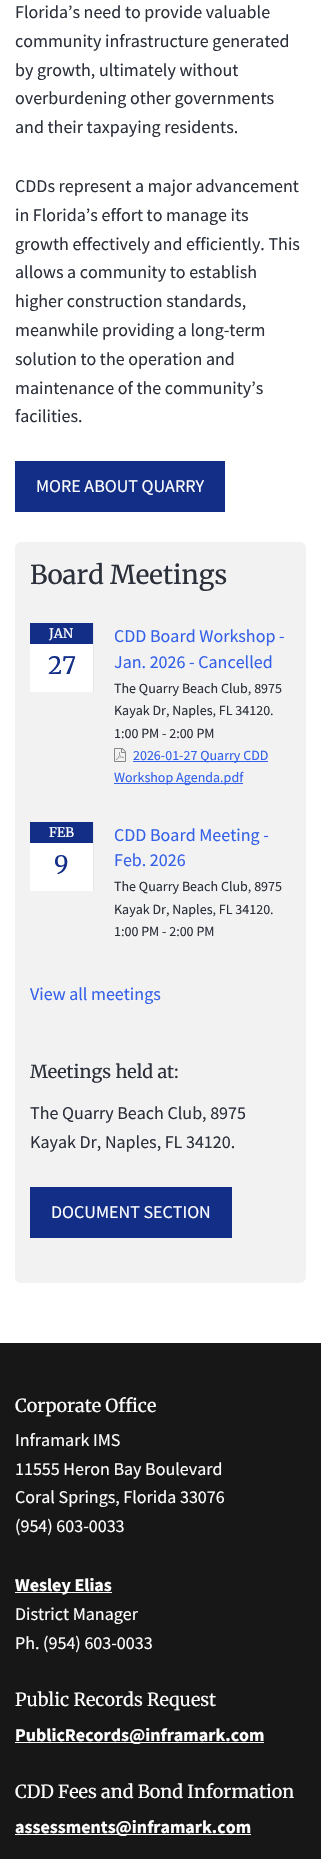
#include "include/core/SkBlurTypes.h"
#include "include/core/SkCanvas.h"
#include "include/core/SkData.h"
#include "include/core/SkFont.h"
#include "include/core/SkFontMgr.h"
#include "include/core/SkImage.h"
#include "include/core/SkMaskFilter.h"
#include "include/core/SkPaint.h"
#include "include/core/SkPathBuilder.h"
#include "include/core/SkTextBlob.h"
#include "include/effects/SkDashPathEffect.h"
#include "include/effects/SkGradientShader.h"
#include "include/utils/SkParsePath.h"

extern sk_sp<SkFontMgr> fontMgr;

static SkFont font(const char* family, int weight, float size, bool italic = false) {
    SkFontStyle style(weight, SkFontStyle::kNormal_Width,
        italic ? SkFontStyle::kItalic_Slant : SkFontStyle::kUpright_Slant);
    SkFont result(fontMgr->matchFamilyStyle(family, style), size);
    result.setSubpixel(true);
    return result;
}

static void drawLabel(SkCanvas* canvas, const char* s, float x, float y, const SkFont& font, SkColor color) {
    SkPaint ink(SkColor4f::FromColor(color));
    ink.setAntiAlias(true);
    canvas->drawString(s, x, y, font, ink);
}

static void fillRect(SkCanvas* canvas, float x, float y, float w, float h, SkColor color) {
    SkPaint ink(SkColor4f::FromColor(color));
    ink.setAntiAlias(true);
    canvas->drawRect(SkRect::MakeXYWH(x, y, w, h), ink);
}

static void fillRRect(SkCanvas* canvas, float x, float y, float w, float h, float radius, SkColor color) {
    SkPaint ink(SkColor4f::FromColor(color));
    ink.setAntiAlias(true);
    canvas->drawRoundRect(SkRect::MakeXYWH(x, y, w, h), radius, radius, ink);
}

static void drawPhoto(SkCanvas* canvas, const char* path, float x, float y, float w, float h) {
    auto image = SkImages::DeferredFromEncodedData(SkData::MakeFromFileName(path));
    canvas->drawImageRect(image, SkRect::MakeXYWH(x, y, w, h), SkSamplingOptions());
}

void draw(SkCanvas* canvas) {
    SkPaint paint;
    paint.setAntiAlias(true);
    canvas->clear(0xFFFFFFFF);
    SkFont font1 = font("Source Sans Pro", 400, 18);
    drawLabel(canvas, "Florida’s need to provide valuable", 15, 18, font1, 0xFF2B303A);
    drawLabel(canvas, "community infrastructure generated", 15, 47, font1, 0xFF2B303A);
    drawLabel(canvas, "by growth, ultimately without", 15, 76, font1, 0xFF2B303A);
    drawLabel(canvas, "overburdening other governments", 15, 104, font1, 0xFF2B303A);
    drawLabel(canvas, "and their taxpaying residents.", 15, 133, font1, 0xFF2B303A);
    drawLabel(canvas, "CDDs represent a major advancement", 15, 192, font1, 0xFF2B303A);
    drawLabel(canvas, "in Florida’s effort to manage its", 15, 221, font1, 0xFF2B303A);
    drawLabel(canvas, "growth effectively and efficiently. This", 15, 250, font1, 0xFF2B303A);
    drawLabel(canvas, "allows a community to establish", 15, 278, font1, 0xFF2B303A);
    drawLabel(canvas, "higher construction standards,", 15, 307, font1, 0xFF2B303A);
    drawLabel(canvas, "meanwhile providing a long-term", 15, 336, font1, 0xFF2B303A);
    drawLabel(canvas, "solution to the operation and", 15, 365, font1, 0xFF2B303A);
    drawLabel(canvas, "maintenance of the community’s", 15, 394, font1, 0xFF2B303A);
    drawLabel(canvas, "facilities.", 15, 422, font1, 0xFF2B303A);
    fillRect(canvas, 15, 461, 210, 51, 0xFF122E87);
    drawLabel(canvas, "MORE ABOUT QUARRY", 36, 492, font1, 0xFFFFFFFF);
    fillRRect(canvas, 15, 542, 291, 741, 6, 0xFFF2F2F2);
    SkFont font2 = font("Merriweather", 300, 26);
    drawLabel(canvas, "Board Meetings", 30, 584, font2, 0xFF2B303A);
    fillRect(canvas, 93, 623, 1, 69, 0xFFE3E4E7);
    fillRect(canvas, 30, 623, 63, 21, 0xFF122E87);
    SkFont font3 = font("Merriweather", 300, 13);
    drawLabel(canvas, "JAN", 49, 638, font3, 0xFFFFFFFF);
    fillRect(canvas, 30, 644, 63, 48, 0xFFFFFFFF);
    SkFont font4 = font("Merriweather", 300, 24);
    drawLabel(canvas, "27", 48, 674, font4, 0xFF122E87);
    drawLabel(canvas, "CDD Board Workshop -", 114, 642, font1, 0xFF3461E8);
    drawLabel(canvas, "Jan. 2026 - Cancelled", 114, 668, font1, 0xFF3461E8);
    SkFont font5 = font("Source Sans Pro", 400, 14);
    drawLabel(canvas, "The Quarry Beach Club, 8975", 114, 693, font5, 0xFF2B303A);
    drawLabel(canvas, "Kayak Dr, Naples, FL 34120.", 114, 715, font5, 0xFF2B303A);
    drawLabel(canvas, "1:00 PM - 2:00 PM", 114, 738, font5, 0xFF2B303A);
    drawPhoto(canvas, "assets/img1.png", 114, 748, 12, 14);
    fillRect(canvas, 133, 761, 135, 1, 0xFF3461E8);
    drawLabel(canvas, "2026-01-27 Quarry CDD", 133, 760, font5, 0xFF3461E8);
    fillRect(canvas, 114, 783, 129, 1, 0xFF3461E8);
    drawLabel(canvas, "Workshop Agenda.pdf", 114, 782, font5, 0xFF3461E8);
    fillRect(canvas, 93, 822, 1, 69, 0xFFE3E4E7);
    fillRect(canvas, 30, 822, 63, 21, 0xFF122E87);
    drawLabel(canvas, "FEB", 49, 837, font3, 0xFFFFFFFF);
    fillRect(canvas, 30, 843, 63, 48, 0xFFFFFFFF);
    drawLabel(canvas, "9", 54, 873, font4, 0xFF122E87);
    drawLabel(canvas, "CDD Board Meeting -", 114, 841, font1, 0xFF3461E8);
    drawLabel(canvas, "Feb. 2026", 114, 866, font1, 0xFF3461E8);
    drawLabel(canvas, "The Quarry Beach Club, 8975", 114, 891, font5, 0xFF2B303A);
    drawLabel(canvas, "Kayak Dr, Naples, FL 34120.", 114, 914, font5, 0xFF2B303A);
    drawLabel(canvas, "1:00 PM - 2:00 PM", 114, 936, font5, 0xFF2B303A);
    drawLabel(canvas, "View all meetings", 30, 1000, font1, 0xFF3461E8);
    SkFont font6 = font("Merriweather", 300, 18);
    drawLabel(canvas, "Meetings held at:", 30, 1078, font6, 0xFF2B303A);
    drawLabel(canvas, "The Quarry Beach Club, 8975", 30, 1119, font1, 0xFF2B303A);
    drawLabel(canvas, "Kayak Dr, Naples, FL 34120.", 30, 1148, font1, 0xFF2B303A);
    fillRect(canvas, 30, 1187, 202, 51, 0xFF122E87);
    drawLabel(canvas, "DOCUMENT SECTION", 51, 1218, font1, 0xFFFFFFFF);
    fillRect(canvas, 0, 1343, 321, 516, 0xFF171717);
    drawLabel(canvas, "Corporate Office", 15, 1412, font6, 0xFFFFFFFF);
    drawLabel(canvas, "Inframark IMS", 15, 1446, font1, 0xFFFFFFFF);
    drawLabel(canvas, "11555 Heron Bay Boulevard", 15, 1475, font1, 0xFFFFFFFF);
    drawLabel(canvas, "Coral Springs, Florida 33076", 15, 1503, font1, 0xFFFFFFFF);
    drawLabel(canvas, "(954) 603-0033", 15, 1532, font1, 0xFFFFFFFF);
    fillRect(canvas, 15, 1592, 97, 1, 0xFFFFFFFF);
    SkFont font7 = font("Source Sans Pro", 700, 18);
    drawLabel(canvas, "Wesley Elias", 15, 1591, font7, 0xFFFFFFFF);
    drawLabel(canvas, "District Manager", 15, 1620, font1, 0xFFFFFFFF);
    drawLabel(canvas, "Ph. (954) 603-0033", 15, 1649, font1, 0xFFFFFFFF);
    drawLabel(canvas, "Public Records Request", 15, 1706, font6, 0xFFFFFFFF);
    fillRect(canvas, 15, 1742, 249, 1, 0xFFFFFFFF);
    drawLabel(canvas, "PublicRecords@inframark.com", 15, 1741, font7, 0xFFFFFFFF);
    drawLabel(canvas, "CDD Fees and Bond Information", 15, 1798, font6, 0xFFFFFFFF);
    fillRect(canvas, 15, 1834, 236, 1, 0xFFFFFFFF);
    drawLabel(canvas, "assessments@inframark.com", 15, 1833, font7, 0xFFFFFFFF);
}
